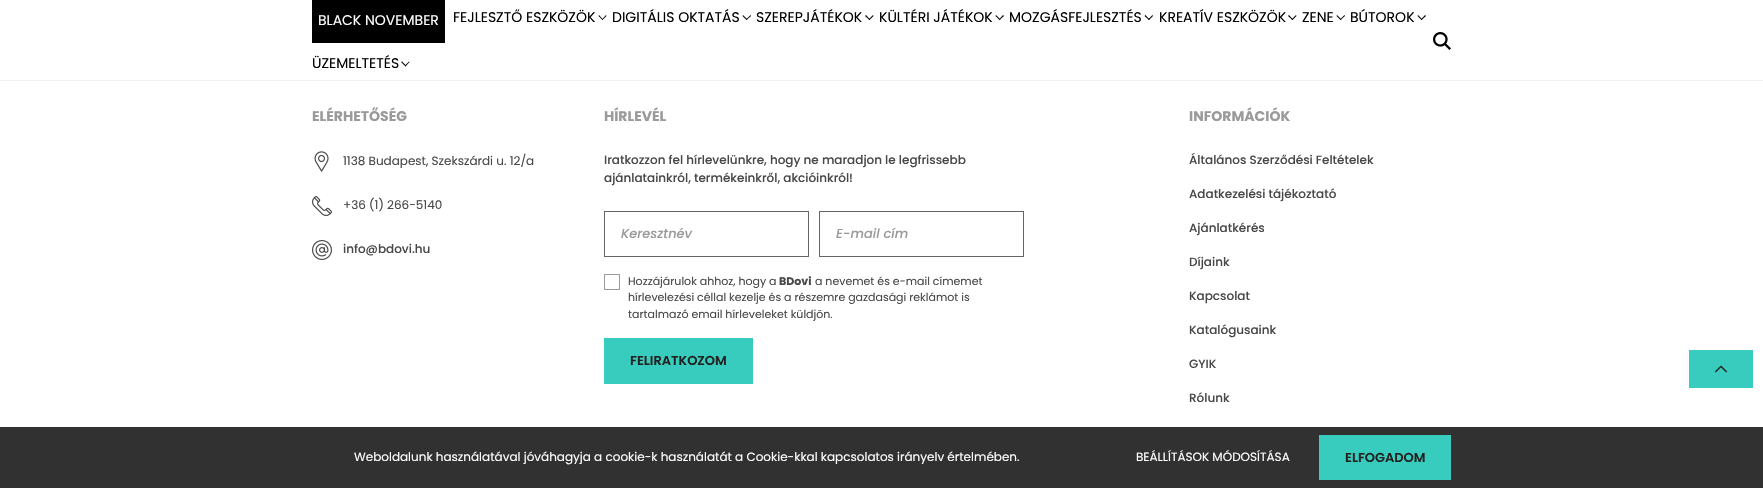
#include "include/core/SkBlurTypes.h"
#include "include/core/SkCanvas.h"
#include "include/core/SkData.h"
#include "include/core/SkFont.h"
#include "include/core/SkFontMgr.h"
#include "include/core/SkImage.h"
#include "include/core/SkMaskFilter.h"
#include "include/core/SkPaint.h"
#include "include/core/SkPathBuilder.h"
#include "include/core/SkTextBlob.h"
#include "include/effects/SkDashPathEffect.h"
#include "include/effects/SkGradientShader.h"
#include "include/utils/SkParsePath.h"

extern sk_sp<SkFontMgr> fontMgr;

static SkFont font(const char* family, int weight, float size, bool italic = false) {
    SkFontStyle style(weight, SkFontStyle::kNormal_Width,
        italic ? SkFontStyle::kItalic_Slant : SkFontStyle::kUpright_Slant);
    SkFont result(fontMgr->matchFamilyStyle(family, style), size);
    result.setSubpixel(true);
    return result;
}

static void drawLabel(SkCanvas* canvas, const char* s, float x, float y, const SkFont& font, SkColor color) {
    SkPaint ink(SkColor4f::FromColor(color));
    ink.setAntiAlias(true);
    canvas->drawString(s, x, y, font, ink);
}

static void fillRect(SkCanvas* canvas, float x, float y, float w, float h, SkColor color) {
    SkPaint ink(SkColor4f::FromColor(color));
    ink.setAntiAlias(true);
    canvas->drawRect(SkRect::MakeXYWH(x, y, w, h), ink);
}

static void drawPhoto(SkCanvas* canvas, const char* path, float x, float y, float w, float h) {
    auto image = SkImages::DeferredFromEncodedData(SkData::MakeFromFileName(path));
    canvas->drawImageRect(image, SkRect::MakeXYWH(x, y, w, h), SkSamplingOptions());
}

static SkPath parsePath(const char* data, bool evenOdd = false) {
    SkPath result = *SkParsePath::FromSVGString(data);
    if (evenOdd) result.setFillType(SkPathFillType::kEvenOdd);
    return result;
}

void draw(SkCanvas* canvas) {
    SkPaint paint;
    paint.setAntiAlias(true);
    canvas->clear(0xFFFFFFFF);
    fillRect(canvas, 0, 80, 1763, 1, 0xFFEFF0F1);
    fillRect(canvas, 312, 0, 133, 43, 0xFF000000);
    SkFont font1 = font("Poppins", 400, 14);
    drawLabel(canvas, "BLACK NOVEMBER", 318, 25, font1, 0xFFFFFFFF);
    drawLabel(canvas, "FEJLESZTŐ ESZKÖZÖK", 453, 22, font1, 0xFF000000);
    paint.setColor(0xFF000000);
    canvas->drawPath(parsePath("M606 15L606.5 16L602.5 20L602 19.5Z"), paint);
    canvas->drawPath(parsePath("M599 15L603 19.5L602.5 20L598.5 16Z"), paint);
    drawLabel(canvas, "DIGITÁLIS OKTATÁS", 612, 22, font1, 0xFF000000);
    canvas->drawPath(parsePath("M750.5 15L751 16L746.5 20L746 19.5Z"), paint);
    canvas->drawPath(parsePath("M743 15L747.5 19.5L746.5 20L742.5 16Z"), paint);
    drawLabel(canvas, "SZEREPJÁTÉKOK", 756, 22, font1, 0xFF000000);
    canvas->drawPath(parsePath("M873 15L873.5 16L869.5 20L868.5 19.5Z"), paint);
    canvas->drawPath(parsePath("M866 15L870 19.5L869.5 20L865 16Z"), paint);
    drawLabel(canvas, "KÜLTÉRI JÁTÉKOK", 879, 22, font1, 0xFF000000);
    canvas->drawPath(parsePath("M1003 15L1004 16L999.5 20L999 19.5Z"), paint);
    canvas->drawPath(parsePath("M996 15L1000.5 19.5L999.5 20L995.5 16Z"), paint);
    drawLabel(canvas, "MOZGÁSFEJLESZTÉS", 1009, 22, font1, 0xFF000000);
    canvas->drawPath(parsePath("M1152.5 15L1153 16L1149 20L1148 19.5Z"), paint);
    canvas->drawPath(parsePath("M1145.5 15L1149.5 19.5L1149 20L1144.5 16Z"), paint);
    drawLabel(canvas, "KREATÍV ESZKÖZÖK", 1159, 22, font1, 0xFF000000);
    canvas->drawPath(parsePath("M1296 15L1296.5 16L1292.5 20L1291.5 19.5Z"), paint);
    canvas->drawPath(parsePath("M1289 15L1293 19.5L1292.5 20L1288 16Z"), paint);
    drawLabel(canvas, "ZENE", 1302, 22, font1, 0xFF000000);
    canvas->drawPath(parsePath("M1344.5 15L1345 16L1340.5 20L1340 19.5Z"), paint);
    canvas->drawPath(parsePath("M1337 15L1341.5 19.5L1340.5 20L1336.5 16Z"), paint);
    drawLabel(canvas, "BÚTOROK", 1350, 22, font1, 0xFF000000);
    canvas->drawPath(parsePath("M1425 15L1426 16L1421.5 20L1421 19.5Z"), paint);
    canvas->drawPath(parsePath("M1418 15L1422.5 19.5L1421.5 20L1417.5 16Z"), paint);
    drawLabel(canvas, "ÜZEMELTETÉS", 312, 68, font1, 0xFF000000);
    canvas->drawPath(parsePath("M409 61.5L409.5 62L405.5 66.5L405 65.5Z"), paint);
    canvas->drawPath(parsePath("M402 61.5L406 65.5L405.5 66.5L401 62Z"), paint);
    drawPhoto(canvas, "assets/img1.png", 1433, 32, 18, 18);
    SkFont font2 = font("Poppins", 700, 14);
    drawLabel(canvas, "ELÉRHETŐSÉG", 312, 121, font2, 0xFF9A9A9A);
    drawPhoto(canvas, "assets/img2.png", 314, 151, 15, 21);
    SkFont font3 = font("Poppins", 400, 12);
    drawLabel(canvas, "1138 Budapest, Szekszárdi u. 12/a", 343, 165, font3, 0xFF484848);
    drawPhoto(canvas, "assets/img3.png", 312, 196, 20, 20);
    drawLabel(canvas, "+36 (1) 266-5140", 343, 209, font3, 0xFF484848);
    drawPhoto(canvas, "assets/img4.png", 312, 240, 20, 20);
    SkFont font4 = font("Poppins", 500, 12);
    drawLabel(canvas, "info@bdovi.hu", 343, 253, font4, 0xFF484848);
    drawLabel(canvas, "HÍRLEVÉL", 604, 121, font2, 0xFF9A9A9A);
    drawLabel(canvas, "Iratkozzon fel hírlevelünkre, hogy ne maradjon le legfrissebb", 604, 164, font4, 0xFF484848);
    drawLabel(canvas, "ajánlatainkról, termékeinkről, akcióinkról!", 604, 182, font4, 0xFF484848);
    paint.setStroke(true);
    paint.setStrokeWidth(1);
    paint.setColor(0xFF646464);
    canvas->drawRect(SkRect::MakeXYWH(604.5f, 211.5f, 204, 45), paint);
    SkFont font5 = font("Poppins", 500, 13, true);
    drawLabel(canvas, "Keresztnév", 621, 238, font5, 0xFF9A9A9A);
    canvas->drawRect(SkRect::MakeXYWH(819.5f, 211.5f, 204, 45), paint);
    drawLabel(canvas, "E-mail cím", 836, 238, font5, 0xFF9A9A9A);
    paint.setColor(0xFF9A9A9A);
    canvas->drawRect(SkRect::MakeXYWH(604.5f, 274.5f, 15, 15), paint);
    SkFont font6 = font("Poppins", 400, 11);
    drawLabel(canvas, "Hozzájárulok ahhoz, hogy a", 628, 285, font6, 0xFF484848);
    SkFont font7 = font("Poppins", 700, 11);
    drawLabel(canvas, "BDovi", 779, 285, font7, 0xFF484848);
    drawLabel(canvas, "a nevemet és e-mail címemet", 815, 285, font6, 0xFF484848);
    drawLabel(canvas, "hírlevelezési céllal kezelje és a részemre gazdasági reklámot is", 628, 301, font6, 0xFF484848);
    drawLabel(canvas, "tartalmazó email hírleveleket küldjön.", 628, 318, font6, 0xFF484848);
    fillRect(canvas, 604, 338, 149, 46, 0xFF37CCBD);
    SkFont font8 = font("Poppins", 600, 13);
    drawLabel(canvas, "FELIRATKOZOM", 630, 365, font8, 0xFF212121);
    drawLabel(canvas, "INFORMÁCIÓK", 1189, 121, font2, 0xFF9A9A9A);
    drawLabel(canvas, "Általános Szerződési Feltételek", 1189, 164, font4, 0xFF484848);
    drawLabel(canvas, "Adatkezelési tájékoztató", 1189, 198, font4, 0xFF484848);
    drawLabel(canvas, "Ajánlatkérés", 1189, 232, font4, 0xFF484848);
    drawLabel(canvas, "Díjaink", 1189, 266, font4, 0xFF484848);
    drawLabel(canvas, "Kapcsolat", 1189, 300, font4, 0xFF484848);
    drawLabel(canvas, "Katalógusaink", 1189, 334, font4, 0xFF484848);
    drawLabel(canvas, "GYIK", 1189, 368, font4, 0xFF484848);
    drawLabel(canvas, "Rólunk", 1189, 402, font4, 0xFF484848);
    fillRect(canvas, 1689, 350, 64, 38, 0xFF37CCBD);
    drawPhoto(canvas, "assets/img5.png", 1715, 365, 12, 8);
    fillRect(canvas, 0, 427, 1763, 61, 0xFF313131);
    drawLabel(canvas, "Weboldalunk használatával jóváhagyja a cookie-k használatát a Cookie-kkal kapcsolatos irányelv értelmében.", 354, 461, font3, 0xFFFFFFFF);
    drawLabel(canvas, "BEÁLLÍTÁSOK MÓDOSÍTÁSA", 1136, 461, font3, 0xFFFFFFFF);
    fillRect(canvas, 1319, 435, 132, 45, 0xFF37CCBD);
    drawLabel(canvas, "ELFOGADOM", 1345, 462, font8, 0xFF212121);
}
